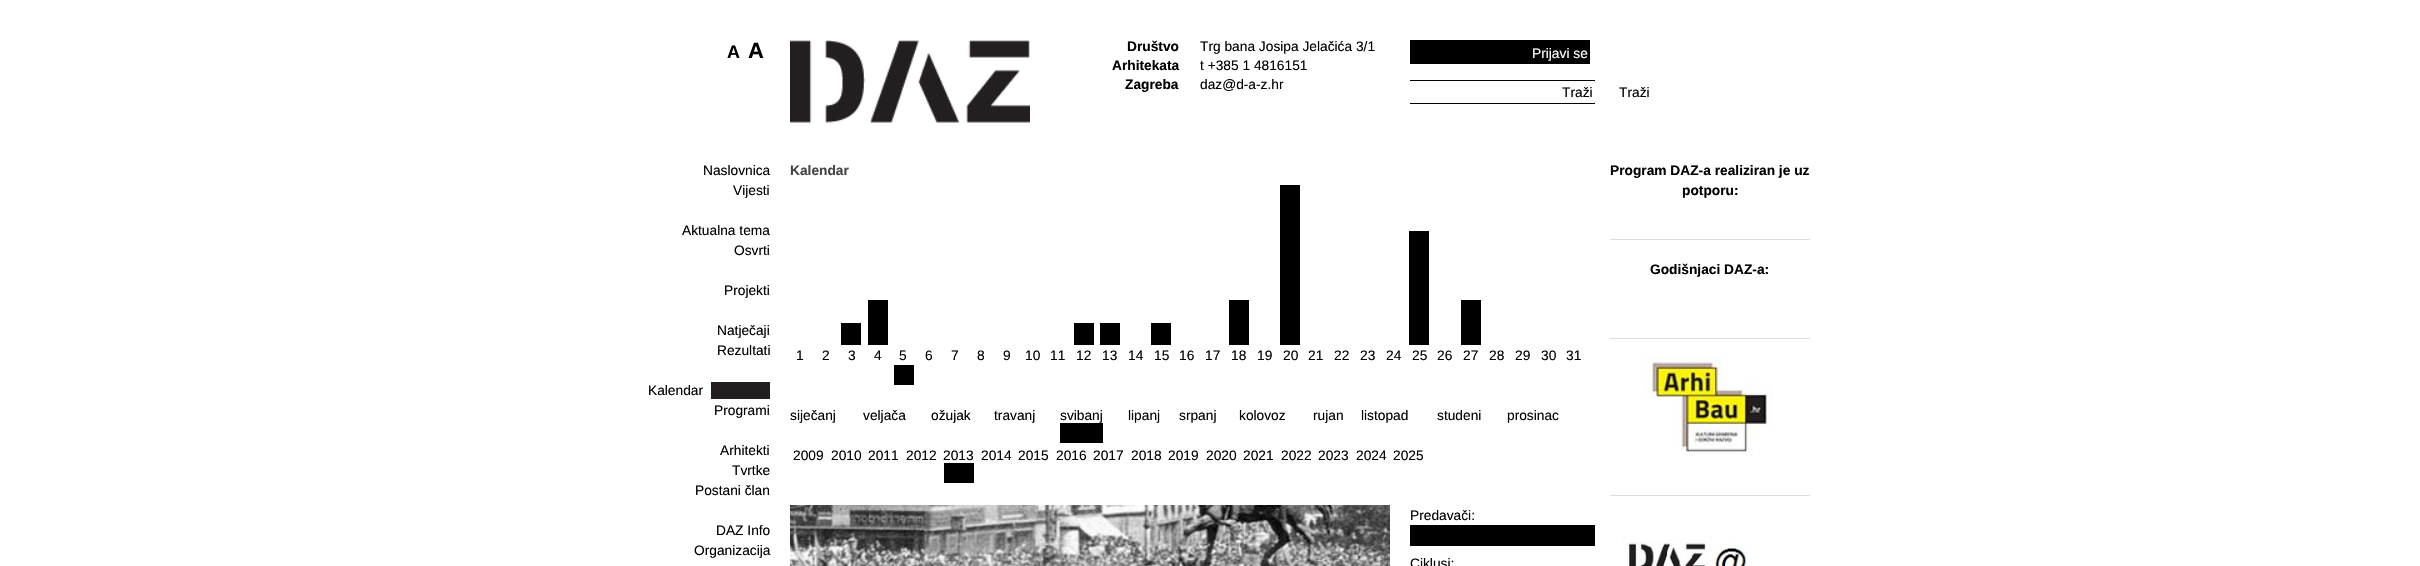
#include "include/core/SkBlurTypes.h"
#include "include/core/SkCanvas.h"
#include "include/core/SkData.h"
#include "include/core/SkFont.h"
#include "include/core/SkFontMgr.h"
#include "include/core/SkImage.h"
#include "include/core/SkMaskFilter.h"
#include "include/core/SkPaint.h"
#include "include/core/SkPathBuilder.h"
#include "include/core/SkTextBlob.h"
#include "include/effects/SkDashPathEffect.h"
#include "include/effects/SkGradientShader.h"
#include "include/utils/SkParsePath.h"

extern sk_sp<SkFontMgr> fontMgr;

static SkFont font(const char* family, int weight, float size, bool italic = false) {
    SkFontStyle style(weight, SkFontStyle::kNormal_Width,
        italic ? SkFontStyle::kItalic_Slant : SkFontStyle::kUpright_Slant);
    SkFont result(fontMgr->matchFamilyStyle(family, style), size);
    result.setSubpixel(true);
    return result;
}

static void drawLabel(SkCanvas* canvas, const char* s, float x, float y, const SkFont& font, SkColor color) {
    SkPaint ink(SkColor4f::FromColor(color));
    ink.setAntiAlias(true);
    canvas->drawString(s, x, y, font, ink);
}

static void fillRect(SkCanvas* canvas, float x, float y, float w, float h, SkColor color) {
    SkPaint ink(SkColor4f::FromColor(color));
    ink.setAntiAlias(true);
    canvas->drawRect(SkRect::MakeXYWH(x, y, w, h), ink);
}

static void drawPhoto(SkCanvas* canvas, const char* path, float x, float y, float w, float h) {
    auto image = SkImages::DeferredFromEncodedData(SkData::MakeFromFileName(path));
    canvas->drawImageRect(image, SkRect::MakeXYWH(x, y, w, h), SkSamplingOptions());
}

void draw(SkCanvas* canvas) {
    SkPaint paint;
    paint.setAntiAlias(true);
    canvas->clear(0xFFFFFFFF);
    SkFont font1 = font("Liberation Sans", 700, 18);
    drawLabel(canvas, "A", 727, 58, font1, 0xFF000000);
    SkFont font2 = font("Liberation Sans", 700, 22);
    drawLabel(canvas, "A", 748, 58, font2, 0xFF000000);
    drawPhoto(canvas, "assets/img1.png", 790, 40, 240, 83);
    SkFont font3 = font("Liberation Sans", 700, 13.75f);
    drawLabel(canvas, "Društvo", 1127, 51, font3, 0xFF000000);
    drawLabel(canvas, "Arhitekata", 1112, 70, font3, 0xFF000000);
    drawLabel(canvas, "Zagreba", 1125, 89, font3, 0xFF000000);
    SkFont font4 = font("Liberation Sans", 400, 13.75f);
    drawLabel(canvas, "Trg bana Josipa Jelačića 3/1", 1200, 51, font4, 0xFF000000);
    drawLabel(canvas, "t +385 1 4816151", 1200, 70, font4, 0xFF000000);
    drawLabel(canvas, "daz@d-a-z.hr", 1200, 89, font4, 0xFF000000);
    fillRect(canvas, 1410, 40, 180, 24, 0xFF000000);
    drawLabel(canvas, "Prijavi se", 1532, 58, font4, 0xFFFFFFFF);
    fillRect(canvas, 1410, 80, 185, 1, 0xFF000000);
    fillRect(canvas, 1410, 103, 185, 1, 0xFF000000);
    drawLabel(canvas, "Traži", 1562, 97, font4, 0xFF000000);
    drawLabel(canvas, "Traži", 1619, 97, font4, 0xFF000000);
    drawLabel(canvas, "Naslovnica", 703, 175, font4, 0xFF000000);
    drawLabel(canvas, "Vijesti", 733, 195, font4, 0xFF000000);
    drawLabel(canvas, "Aktualna tema", 682, 235, font4, 0xFF000000);
    drawLabel(canvas, "Osvrti", 734, 255, font4, 0xFF000000);
    drawLabel(canvas, "Projekti", 724, 295, font4, 0xFF000000);
    drawLabel(canvas, "Natječaji", 717, 335, font4, 0xFF000000);
    drawLabel(canvas, "Rezultati", 717, 355, font4, 0xFF000000);
    fillRect(canvas, 711, 382, 59, 17, 0xFF231F20);
    drawLabel(canvas, "Kalendar", 648, 395, font4, 0xFF000000);
    drawLabel(canvas, "Programi", 714, 415, font4, 0xFF000000);
    drawLabel(canvas, "Arhitekti", 720, 455, font4, 0xFF000000);
    drawLabel(canvas, "Tvrtke", 732, 475, font4, 0xFF000000);
    drawLabel(canvas, "Postani član", 695, 495, font4, 0xFF000000);
    drawLabel(canvas, "DAZ Info", 716, 535, font4, 0xFF000000);
    drawLabel(canvas, "Organizacija", 694, 555, font4, 0xFF000000);
    drawLabel(canvas, "Kalendar", 790, 175, font3, 0xFF444444);
    drawLabel(canvas, "1", 796, 360, font4, 0xFF000000);
    drawLabel(canvas, "2", 822, 360, font4, 0xFF000000);
    fillRect(canvas, 841, 323, 20, 22, 0xFF000000);
    drawLabel(canvas, "3", 848, 360, font4, 0xFF000000);
    fillRect(canvas, 868, 300, 20, 45, 0xFF000000);
    drawLabel(canvas, "4", 874, 360, font4, 0xFF000000);
    fillRect(canvas, 894, 365, 20, 20, 0xFF000000);
    drawLabel(canvas, "5", 899, 360, font4, 0xFF000000);
    drawLabel(canvas, "6", 925, 360, font4, 0xFF000000);
    drawLabel(canvas, "7", 951, 360, font4, 0xFF000000);
    drawLabel(canvas, "8", 977, 360, font4, 0xFF000000);
    drawLabel(canvas, "9", 1003, 360, font4, 0xFF000000);
    drawLabel(canvas, "10", 1025, 360, font4, 0xFF000000);
    drawLabel(canvas, "11", 1050, 360, font4, 0xFF000000);
    fillRect(canvas, 1074, 323, 20, 22, 0xFF000000);
    drawLabel(canvas, "12", 1076, 360, font4, 0xFF000000);
    fillRect(canvas, 1100, 323, 20, 22, 0xFF000000);
    drawLabel(canvas, "13", 1102, 360, font4, 0xFF000000);
    drawLabel(canvas, "14", 1128, 360, font4, 0xFF000000);
    fillRect(canvas, 1151, 323, 20, 22, 0xFF000000);
    drawLabel(canvas, "15", 1154, 360, font4, 0xFF000000);
    drawLabel(canvas, "16", 1179, 360, font4, 0xFF000000);
    drawLabel(canvas, "17", 1205, 360, font4, 0xFF000000);
    fillRect(canvas, 1229, 300, 20, 45, 0xFF000000);
    drawLabel(canvas, "18", 1231, 360, font4, 0xFF000000);
    drawLabel(canvas, "19", 1257, 360, font4, 0xFF000000);
    fillRect(canvas, 1280, 185, 20, 160, 0xFF000000);
    drawLabel(canvas, "20", 1283, 360, font4, 0xFF000000);
    drawLabel(canvas, "21", 1308, 360, font4, 0xFF000000);
    drawLabel(canvas, "22", 1334, 360, font4, 0xFF000000);
    drawLabel(canvas, "23", 1360, 360, font4, 0xFF000000);
    drawLabel(canvas, "24", 1386, 360, font4, 0xFF000000);
    fillRect(canvas, 1409, 231, 20, 114, 0xFF000000);
    drawLabel(canvas, "25", 1412, 360, font4, 0xFF000000);
    drawLabel(canvas, "26", 1437, 360, font4, 0xFF000000);
    fillRect(canvas, 1461, 300, 20, 45, 0xFF000000);
    drawLabel(canvas, "27", 1463, 360, font4, 0xFF000000);
    drawLabel(canvas, "28", 1489, 360, font4, 0xFF000000);
    drawLabel(canvas, "29", 1515, 360, font4, 0xFF000000);
    drawLabel(canvas, "30", 1541, 360, font4, 0xFF000000);
    drawLabel(canvas, "31", 1566, 360, font4, 0xFF000000);
    drawLabel(canvas, "siječanj", 790, 420, font4, 0xFF000000);
    drawLabel(canvas, "veljača", 863, 420, font4, 0xFF000000);
    drawLabel(canvas, "ožujak", 931, 420, font4, 0xFF000000);
    drawLabel(canvas, "travanj", 994, 420, font4, 0xFF000000);
    drawLabel(canvas, "svibanj", 1060, 420, font4, 0xFF000000);
    fillRect(canvas, 1060, 423, 43, 20, 0xFF000000);
    drawLabel(canvas, "lipanj", 1128, 420, font4, 0xFF000000);
    drawLabel(canvas, "srpanj", 1179, 420, font4, 0xFF000000);
    drawLabel(canvas, "kolovoz", 1239, 420, font4, 0xFF000000);
    drawLabel(canvas, "rujan", 1313, 420, font4, 0xFF000000);
    drawLabel(canvas, "listopad", 1361, 420, font4, 0xFF000000);
    drawLabel(canvas, "studeni", 1437, 420, font4, 0xFF000000);
    drawLabel(canvas, "prosinac", 1507, 420, font4, 0xFF000000);
    drawLabel(canvas, "2009", 793, 460, font4, 0xFF000000);
    drawLabel(canvas, "2010", 831, 460, font4, 0xFF000000);
    drawLabel(canvas, "2011", 868, 460, font4, 0xFF000000);
    drawLabel(canvas, "2012", 906, 460, font4, 0xFF000000);
    drawLabel(canvas, "2013", 943, 460, font4, 0xFF000000);
    fillRect(canvas, 944, 463, 30, 20, 0xFF000000);
    drawLabel(canvas, "2014", 981, 460, font4, 0xFF000000);
    drawLabel(canvas, "2015", 1018, 460, font4, 0xFF000000);
    drawLabel(canvas, "2016", 1056, 460, font4, 0xFF000000);
    drawLabel(canvas, "2017", 1093, 460, font4, 0xFF000000);
    drawLabel(canvas, "2018", 1131, 460, font4, 0xFF000000);
    drawLabel(canvas, "2019", 1168, 460, font4, 0xFF000000);
    drawLabel(canvas, "2020", 1206, 460, font4, 0xFF000000);
    drawLabel(canvas, "2021", 1243, 460, font4, 0xFF000000);
    drawLabel(canvas, "2022", 1281, 460, font4, 0xFF000000);
    drawLabel(canvas, "2023", 1318, 460, font4, 0xFF000000);
    drawLabel(canvas, "2024", 1356, 460, font4, 0xFF000000);
    drawLabel(canvas, "2025", 1393, 460, font4, 0xFF000000);
    drawPhoto(canvas, "assets/img2.png", 790, 505, 600, 61);
    drawLabel(canvas, "Predavači:", 1410, 520, font4, 0xFF000000);
    fillRect(canvas, 1410, 525, 185, 21, 0xFF000000);
    drawLabel(canvas, "Ciklusi:", 1410, 568, font4, 0xFF000000);
    drawLabel(canvas, "Program DAZ-a realiziran je uz", 1610, 175, font3, 0xFF000000);
    drawLabel(canvas, "potporu:", 1682, 195, font3, 0xFF000000);
    fillRect(canvas, 1610, 239, 200, 1, 0xFFDDDDDD);
    drawLabel(canvas, "Godišnjaci DAZ-a:", 1650, 274, font3, 0xFF000000);
    fillRect(canvas, 1610, 338, 200, 1, 0xFFDDDDDD);
    drawPhoto(canvas, "assets/img3.png", 1643, 357, 130, 99);
    fillRect(canvas, 1610, 495, 200, 1, 0xFFDDDDDD);
    drawPhoto(canvas, "assets/img4.png", 1623, 535, 124, 31);
}
